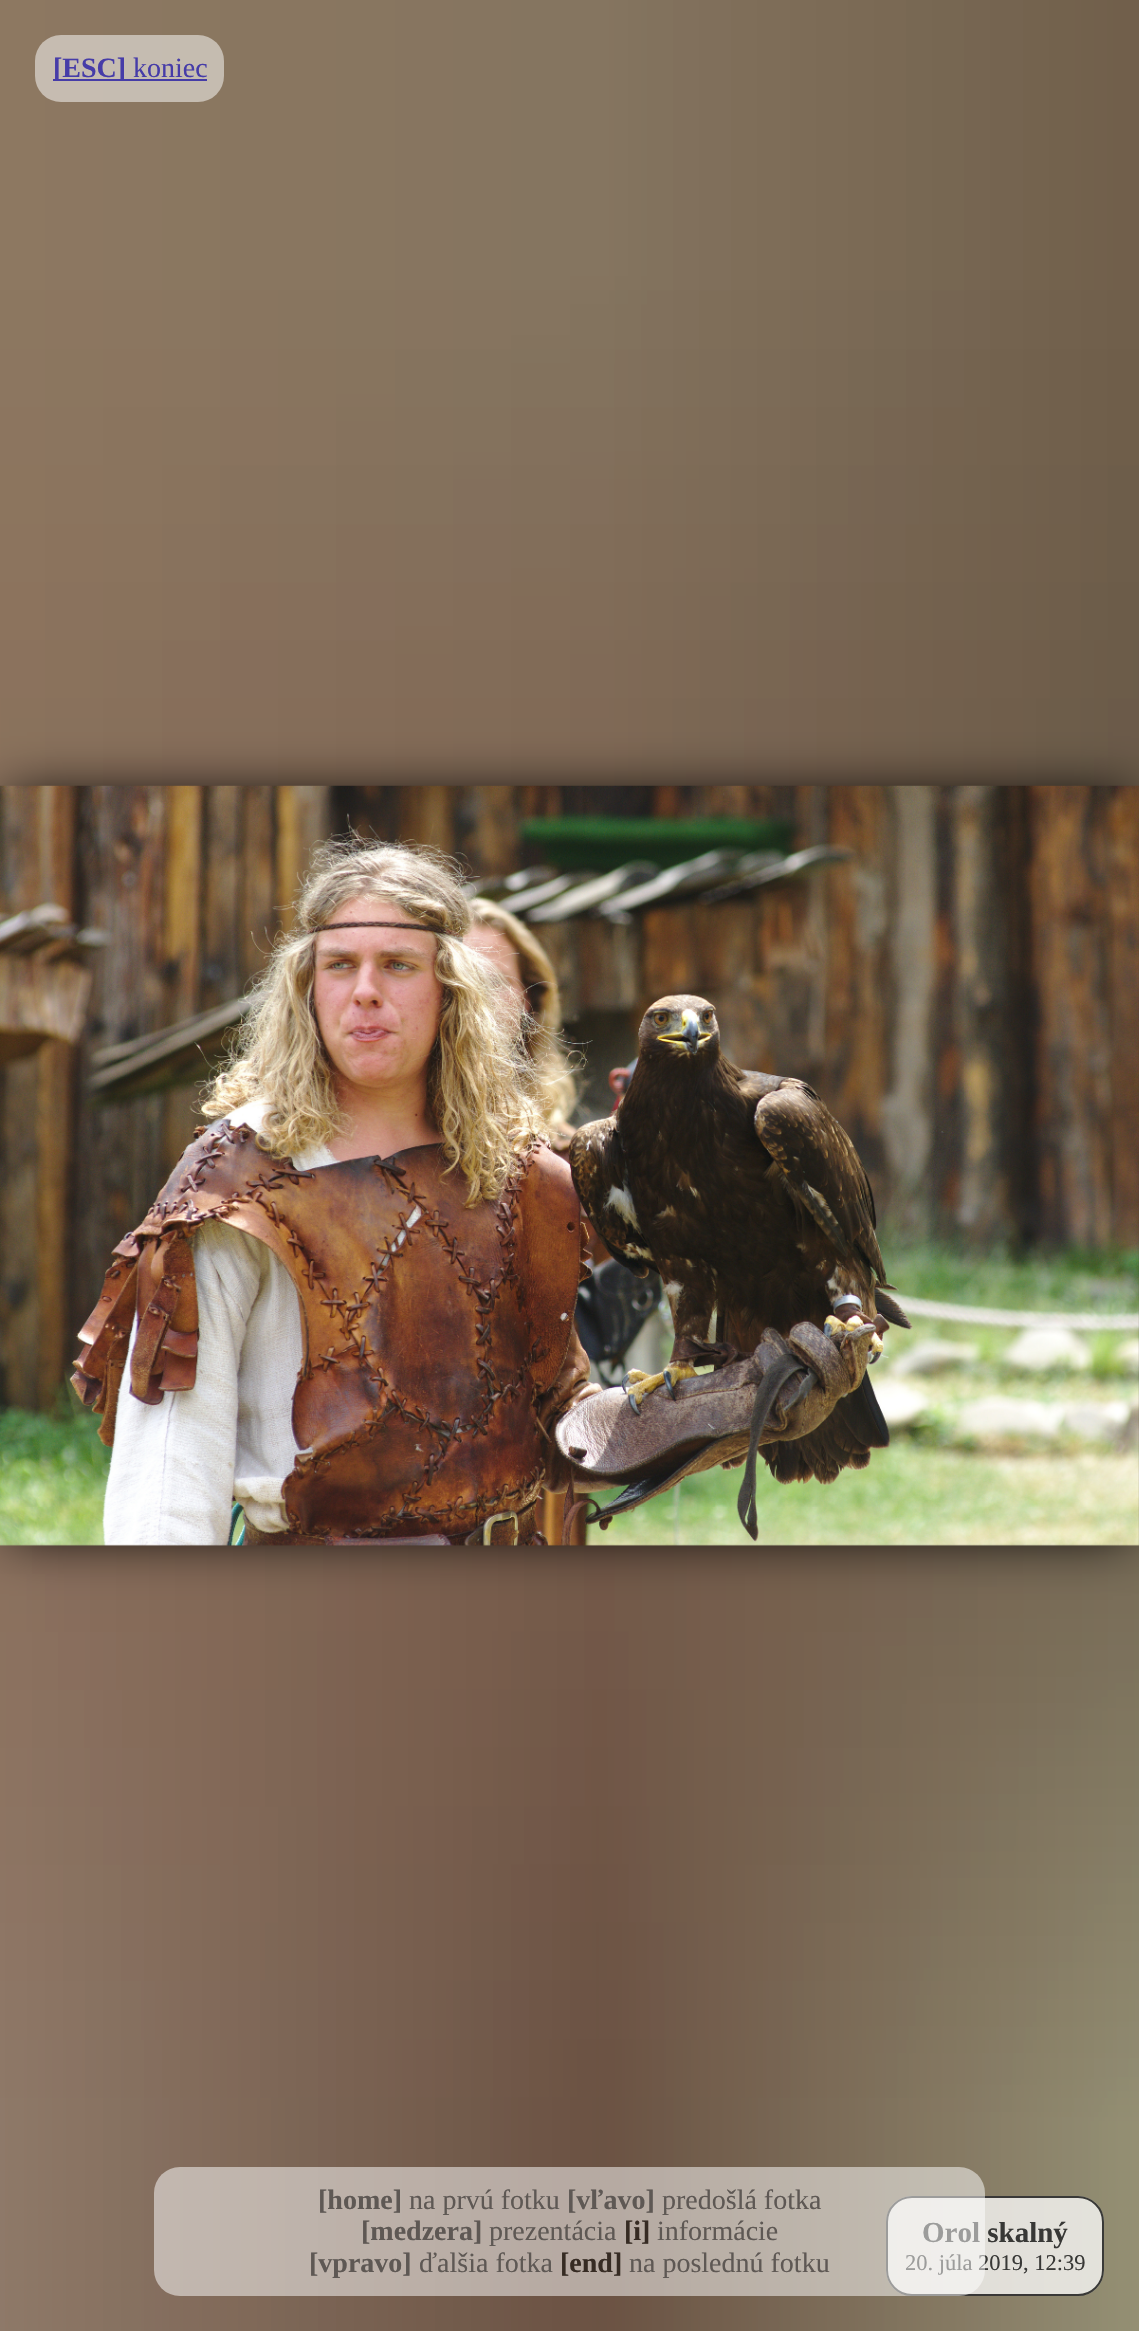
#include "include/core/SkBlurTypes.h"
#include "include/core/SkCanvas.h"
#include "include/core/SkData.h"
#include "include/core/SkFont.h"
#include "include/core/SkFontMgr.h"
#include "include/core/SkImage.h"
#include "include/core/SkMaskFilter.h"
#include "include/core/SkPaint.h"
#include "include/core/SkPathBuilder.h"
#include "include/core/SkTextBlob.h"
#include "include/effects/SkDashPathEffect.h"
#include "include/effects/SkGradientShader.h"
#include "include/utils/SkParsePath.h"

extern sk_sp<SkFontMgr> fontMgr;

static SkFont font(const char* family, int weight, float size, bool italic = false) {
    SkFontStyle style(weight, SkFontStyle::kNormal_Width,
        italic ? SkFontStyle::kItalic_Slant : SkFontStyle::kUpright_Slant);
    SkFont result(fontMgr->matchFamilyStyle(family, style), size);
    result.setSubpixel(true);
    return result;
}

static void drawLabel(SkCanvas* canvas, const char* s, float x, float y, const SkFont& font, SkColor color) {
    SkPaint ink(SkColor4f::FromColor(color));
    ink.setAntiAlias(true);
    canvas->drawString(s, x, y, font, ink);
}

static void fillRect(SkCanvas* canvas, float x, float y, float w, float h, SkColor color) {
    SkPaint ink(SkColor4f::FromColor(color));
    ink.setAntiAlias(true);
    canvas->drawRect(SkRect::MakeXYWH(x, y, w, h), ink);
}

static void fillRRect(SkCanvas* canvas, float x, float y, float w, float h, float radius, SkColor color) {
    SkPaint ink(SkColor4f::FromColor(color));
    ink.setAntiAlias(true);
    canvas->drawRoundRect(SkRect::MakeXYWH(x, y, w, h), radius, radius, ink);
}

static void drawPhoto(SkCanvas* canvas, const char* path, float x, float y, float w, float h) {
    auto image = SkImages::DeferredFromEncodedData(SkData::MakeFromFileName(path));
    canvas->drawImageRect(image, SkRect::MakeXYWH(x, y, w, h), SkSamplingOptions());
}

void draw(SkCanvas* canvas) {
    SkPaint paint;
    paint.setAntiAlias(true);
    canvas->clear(0xFFFFFFFF);
    drawPhoto(canvas, "assets/img1.png", 0, 0, 1139, 2331);
    fillRRect(canvas, 35, 35, 189, 67, 26, 0x80FFFFFF);
    fillRect(canvas, 53, 79, 73, 2, 0xFF463CA8);
    SkFont font1 = font("Liberation Serif", 700, 28);
    drawLabel(canvas, "[ESC]", 53, 77, font1, 0xFF463CA8);
    fillRect(canvas, 126, 79, 81, 2, 0xFF453CA7);
    SkFont font2 = font("Liberation Serif", 400, 28);
    drawLabel(canvas, "koniec", 133, 77, font2, 0xFF463CA8);
    paint.setColor(0xFF000000);
    paint.setMaskFilter(SkMaskFilter::MakeBlur(kNormal_SkBlurStyle, 26));
    canvas->drawRect(SkRect::MakeXYWH(9, 795, 1122, 742), paint);
    paint.setMaskFilter(nullptr);
    drawPhoto(canvas, "assets/img2.png", 0, 785, 1139, 761);
    fillRRect(canvas, 886, 2196, 218, 100, 26, 0xBFFFFFFF);
    paint.setStroke(true);
    paint.setStrokeWidth(2);
    paint.setColor(0xBF000000);
    canvas->drawRoundRect(SkRect::MakeXYWH(887, 2197, 216, 98), 25, 25, paint);
    SkFont font3 = font("Liberation Serif", 700, 29);
    drawLabel(canvas, "Orol skalný", 922, 2242, font3, 0xFF383836);
    SkFont font4 = font("Liberation Serif", 400, 22.5f);
    drawLabel(canvas, "20. júla 2019, 12:39", 905, 2270, font4, 0xFF383836);
    fillRRect(canvas, 154, 2167, 831, 129, 26, 0x80FFFFFF);
    drawLabel(canvas, "[home]", 318, 2209, font1, 0xFF5E5854);
    drawLabel(canvas, "na prvú fotku", 409, 2209, font2, 0xFF5E5854);
    drawLabel(canvas, "[vľavo]", 567, 2209, font1, 0xFF5E5854);
    drawLabel(canvas, "predošlá fotka", 662, 2209, font2, 0xFF5E5854);
    drawLabel(canvas, "[medzera]", 361, 2240, font1, 0xFF5E5854);
    drawLabel(canvas, "prezentácia", 489, 2240, font2, 0xFF5E5854);
    drawLabel(canvas, "[i]", 624, 2240, font1, 0xFF362B23);
    drawLabel(canvas, "informácie", 657, 2240, font2, 0xFF5E5854);
    drawLabel(canvas, "[vpravo]", 309, 2272, font1, 0xFF5E5854);
    drawLabel(canvas, "ďalšia fotka", 419, 2272, font2, 0xFF5E5854);
    drawLabel(canvas, "[end]", 560, 2272, font1, 0xFF362B23);
    drawLabel(canvas, "na poslednú fotku", 629, 2272, font2, 0xFF5E5854);
}
